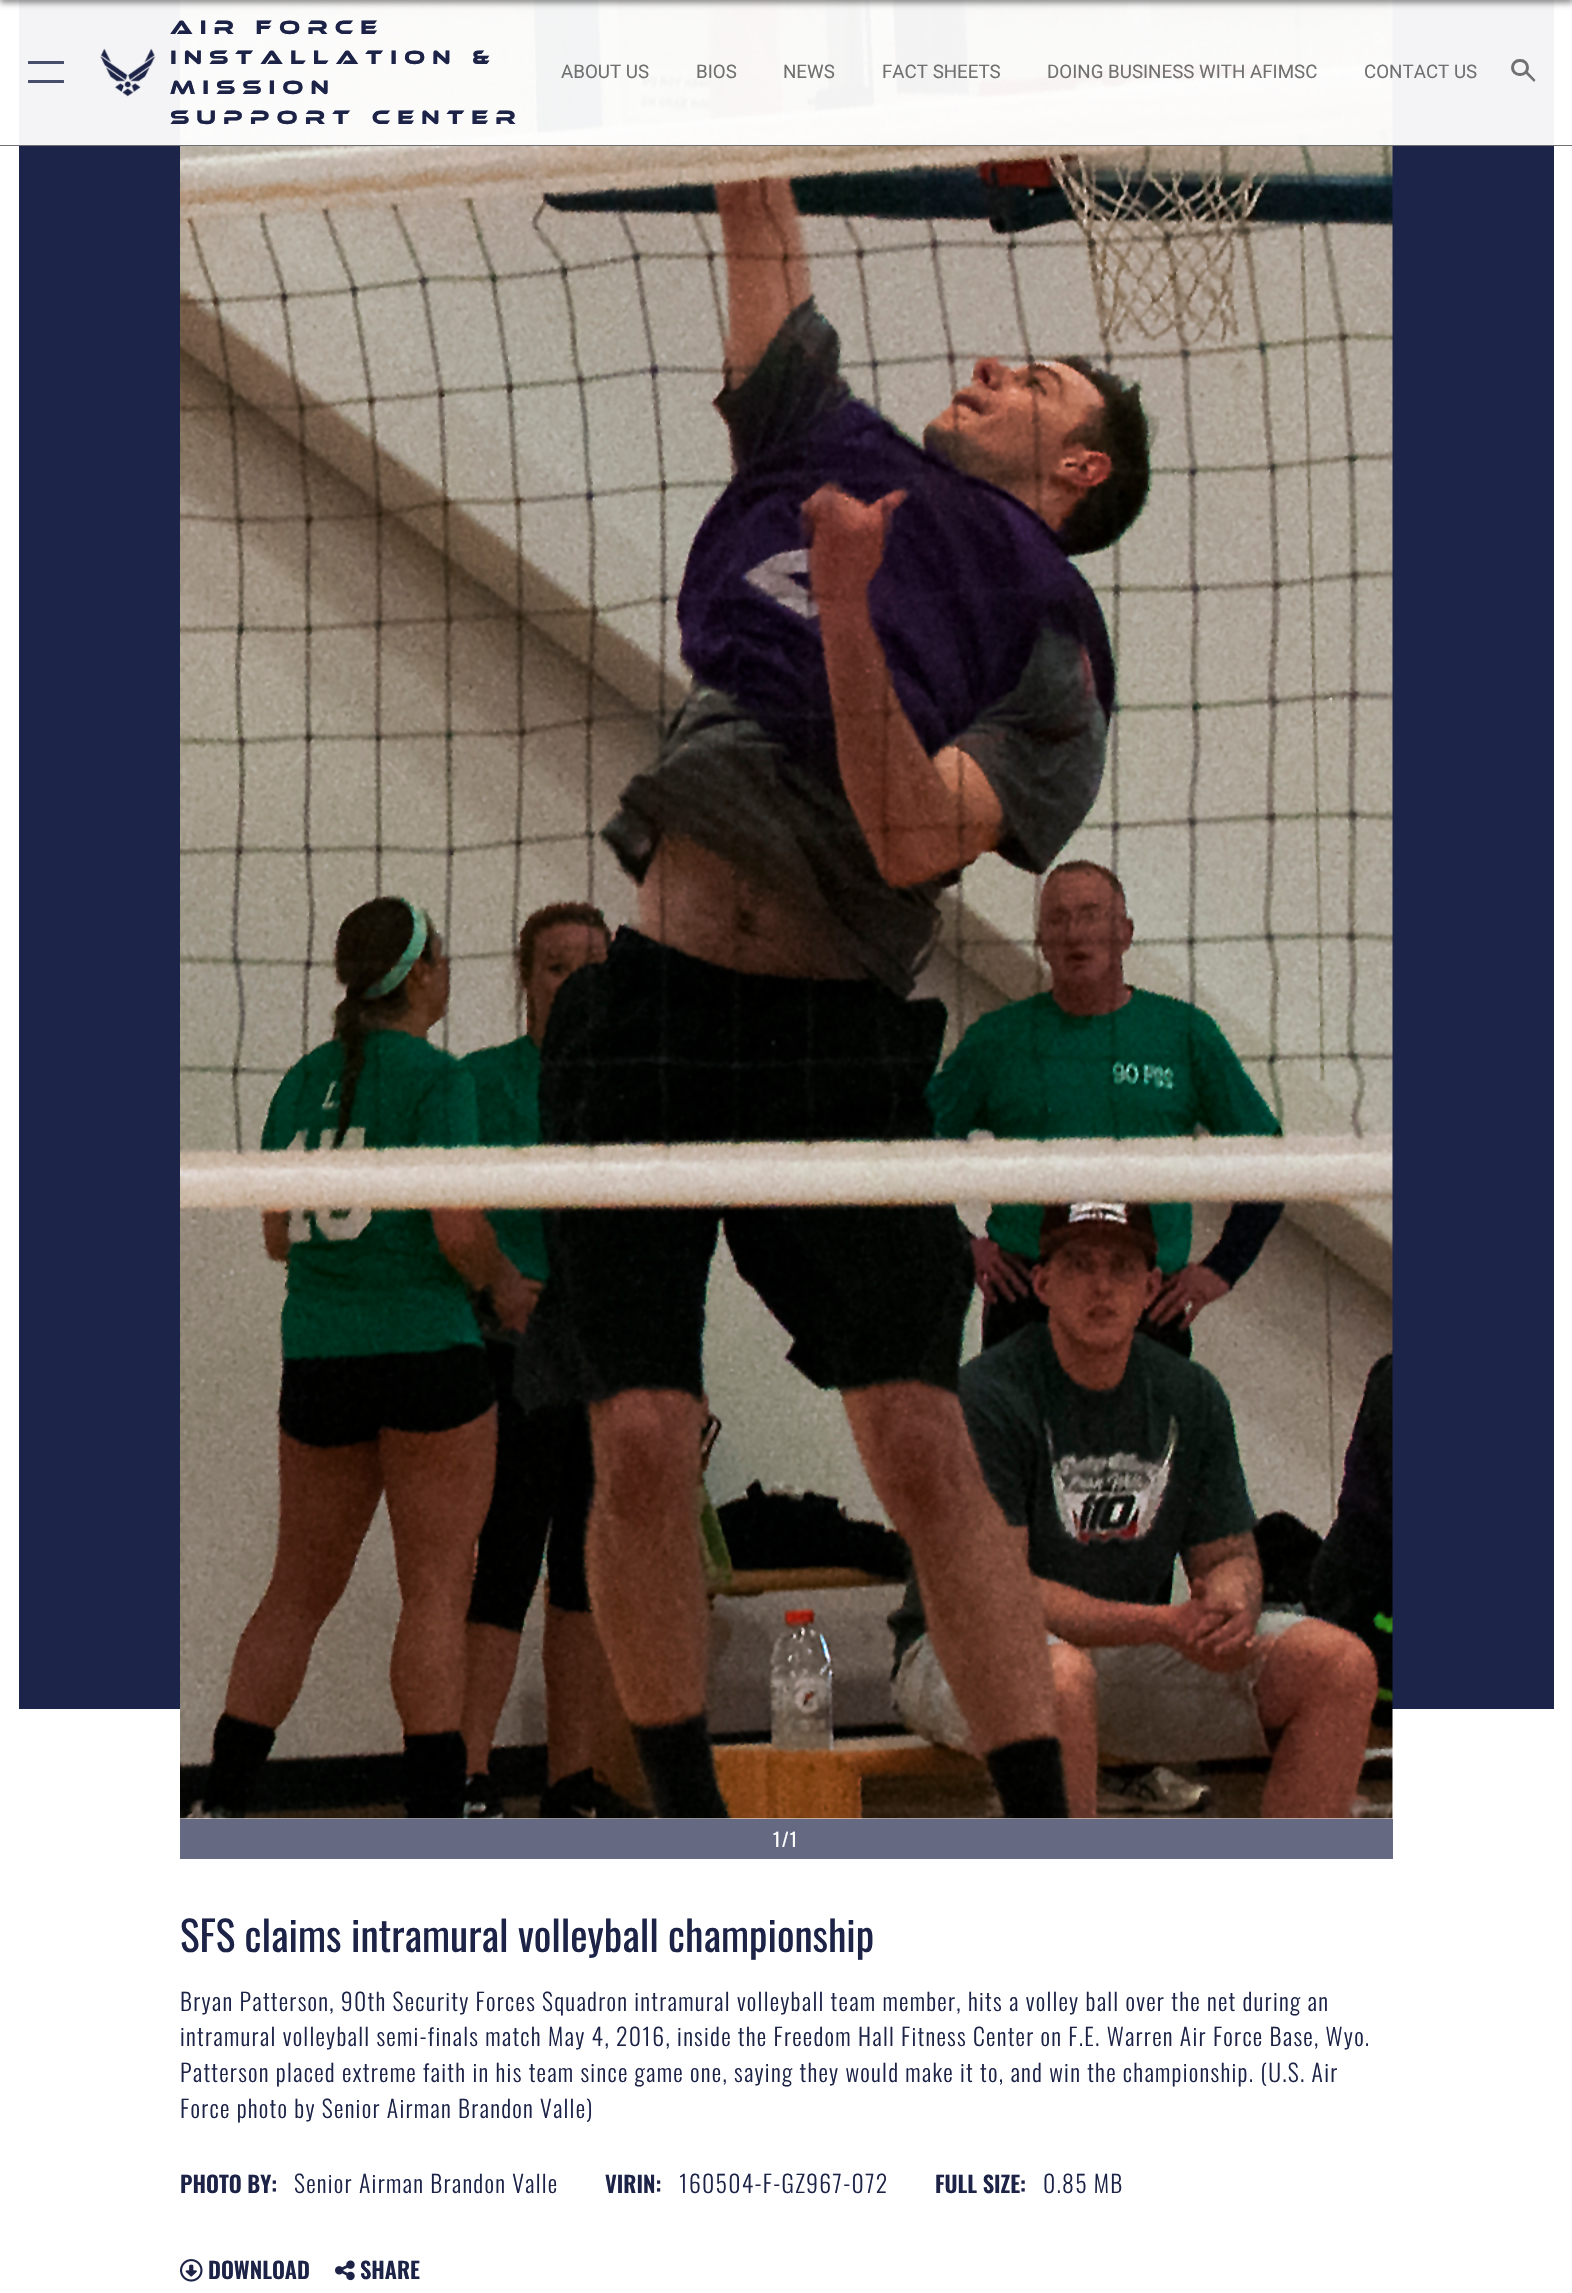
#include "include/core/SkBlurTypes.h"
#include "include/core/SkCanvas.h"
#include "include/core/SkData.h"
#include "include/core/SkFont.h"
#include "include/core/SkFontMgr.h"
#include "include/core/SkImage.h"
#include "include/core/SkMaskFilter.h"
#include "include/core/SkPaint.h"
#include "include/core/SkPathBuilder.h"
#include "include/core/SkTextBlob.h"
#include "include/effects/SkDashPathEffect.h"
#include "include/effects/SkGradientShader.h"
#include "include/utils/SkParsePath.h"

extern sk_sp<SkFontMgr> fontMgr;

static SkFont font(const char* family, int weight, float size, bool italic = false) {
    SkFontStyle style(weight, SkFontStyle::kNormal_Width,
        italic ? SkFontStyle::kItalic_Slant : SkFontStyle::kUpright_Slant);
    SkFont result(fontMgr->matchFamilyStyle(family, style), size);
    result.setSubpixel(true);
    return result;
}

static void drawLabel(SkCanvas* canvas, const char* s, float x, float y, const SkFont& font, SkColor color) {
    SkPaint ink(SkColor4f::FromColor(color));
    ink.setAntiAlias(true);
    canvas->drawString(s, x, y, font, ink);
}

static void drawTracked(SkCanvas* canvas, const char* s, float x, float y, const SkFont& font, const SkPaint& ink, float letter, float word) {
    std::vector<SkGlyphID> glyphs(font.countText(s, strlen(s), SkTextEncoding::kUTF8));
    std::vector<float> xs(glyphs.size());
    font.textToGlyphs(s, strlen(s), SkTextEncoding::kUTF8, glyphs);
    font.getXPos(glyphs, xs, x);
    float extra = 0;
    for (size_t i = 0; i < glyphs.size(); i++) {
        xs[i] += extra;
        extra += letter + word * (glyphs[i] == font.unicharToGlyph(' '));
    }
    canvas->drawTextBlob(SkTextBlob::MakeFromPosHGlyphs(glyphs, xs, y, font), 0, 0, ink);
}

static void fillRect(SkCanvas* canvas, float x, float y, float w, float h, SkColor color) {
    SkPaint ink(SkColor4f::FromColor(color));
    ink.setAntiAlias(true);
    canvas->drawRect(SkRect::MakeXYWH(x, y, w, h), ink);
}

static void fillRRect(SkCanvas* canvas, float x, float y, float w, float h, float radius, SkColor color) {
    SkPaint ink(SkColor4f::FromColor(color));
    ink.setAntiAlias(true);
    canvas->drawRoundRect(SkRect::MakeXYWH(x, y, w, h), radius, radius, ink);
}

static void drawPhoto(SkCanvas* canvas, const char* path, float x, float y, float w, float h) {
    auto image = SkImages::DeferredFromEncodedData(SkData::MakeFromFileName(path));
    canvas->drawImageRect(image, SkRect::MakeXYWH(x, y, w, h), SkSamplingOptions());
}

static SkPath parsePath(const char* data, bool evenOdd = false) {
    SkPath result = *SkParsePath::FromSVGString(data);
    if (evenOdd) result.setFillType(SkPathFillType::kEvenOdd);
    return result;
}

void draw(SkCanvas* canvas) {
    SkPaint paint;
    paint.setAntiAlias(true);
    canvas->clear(0xFFFFFFFF);
    fillRect(canvas, 19, 0, 1535, 1709, 0xFF1C2449);
    drawPhoto(canvas, "assets/img3.png", 180, 1818, 1, 1);
    drawPhoto(canvas, "assets/img2.png", 180, 0, 1213, 1819);
    fillRect(canvas, 19, 0, 1535, 145, 0xF2FFFFFF);
    paint.setColor(0x73000000);
    paint.setMaskFilter(SkMaskFilter::MakeBlur(kNormal_SkBlurStyle, 3));
    canvas->drawRect(SkRect::MakeXYWH(0, -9, 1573, 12), paint);
    paint.setMaskFilter(nullptr);
    fillRect(canvas, 0, 145, 1572, 1, 0xFF707070);
    fillRRect(canvas, 28, 61, 36, 3, 0.5f, 0xFF474E6C);
    fillRRect(canvas, 28, 80, 36, 3, 0.5f, 0xFF474E6C);
    drawPhoto(canvas, "assets/img1.png", 100, 48, 56, 49);
    SkFont font1 = font("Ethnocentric", 400, 20);
    paint.setColor(0xFF1C2347);
    drawTracked(canvas, "Air Force", 170, 34, font1, paint, 7, 0);
    drawTracked(canvas, "Installation &", 170, 64, font1, paint, 7, 0);
    drawTracked(canvas, "Mission", 170, 94, font1, paint, 7, 0);
    drawTracked(canvas, "Support Center", 170, 124, font1, paint, 7, 0);
    SkFont font2 = font("Roboto", 400, 18.75f);
    drawLabel(canvas, "ABOUT US", 561, 78, font2, 0xFF707070);
    drawLabel(canvas, "BIOS", 696, 78, font2, 0xFF707070);
    drawLabel(canvas, "NEWS", 783, 78, font2, 0xFF707070);
    drawLabel(canvas, "FACT SHEETS", 882, 78, font2, 0xFF707070);
    drawLabel(canvas, "DOING BUSINESS WITH AFIMSC", 1047, 78, font2, 0xFF707070);
    drawLabel(canvas, "CONTACT US", 1364, 78, font2, 0xFF707070);
    paint.setStroke(true);
    paint.setStrokeWidth(3);
    paint.setColor(0xFF707070);
    canvas->drawRoundRect(SkRect::MakeXYWH(1512.5f, 60.5f, 15, 14), 7, 7, paint);
    paint.setStroke(false);
    canvas->drawPath(parsePath("M1527 71L1535.5 80L1534 82L1525 73Z"), paint);
    fillRect(canvas, 180, 1819, 1213, 40, 0xFF656A82);
    SkFont font3 = font("Oswald", 400, 18.75f);
    paint.setColor(0xFFFFFFFF);
    drawTracked(canvas, "1/1", 773, 1847, font3, paint, 1.25f, 0);
    SkFont font4 = font("Oswald", 400, 41.25f);
    drawLabel(canvas, "SFS claims intramural volleyball championship", 180, 1952, font4, 0xFF1C2347);
    SkFont font5 = font("Oswald", 300, 23.75f);
    paint.setColor(0xFF1C2347);
    drawTracked(canvas, "Bryan Patterson, 90th Security Forces Squadron intramural volleyball team member, hits a volley ball over the net during an", 180, 2011, font5, paint, 1.25f, 0);
    drawTracked(canvas, "intramural volleyball semi-finals match May 4, 2016, inside the Freedom Hall Fitness Center on F.E. Warren Air Force Base, Wyo.", 180, 2046, font5, paint, 1.25f, 0);
    drawTracked(canvas, "Patterson placed extreme faith in his team since game one, saying they would make it to, and win the championship. (U.S. Air", 180, 2082, font5, paint, 1.25f, 0);
    drawTracked(canvas, "Force photo by Senior Airman Brandon Valle)", 180, 2118, font5, paint, 1.25f, 0);
    SkFont font6 = font("Oswald", 600, 22.5f);
    drawLabel(canvas, "PHOTO BY:", 180, 2193, font6, 0xFF1C2347);
    drawTracked(canvas, "Senior Airman Brandon Valle", 294, 2193, font5, paint, 1.25f, 0);
    drawLabel(canvas, "VIRIN:", 605, 2193, font6, 0xFF1C2347);
    drawTracked(canvas, "160504-F-GZ967-072", 679, 2193, font5, paint, 1.25f, 0);
    drawLabel(canvas, "FULL SIZE:", 935, 2193, font6, 0xFF1C2347);
    drawTracked(canvas, "0.85 MB", 1043, 2193, font5, paint, 1.25f, 0);
    drawPhoto(canvas, "assets/img4.png", 180, 2259, 23, 23);
    drawLabel(canvas, "DOWNLOAD", 208, 2279, font6, 0xFF1C2347);
    drawPhoto(canvas, "assets/img5.png", 335, 2260, 20, 21);
    drawLabel(canvas, "SHARE", 360, 2279, font6, 0xFF1C2347);
}
